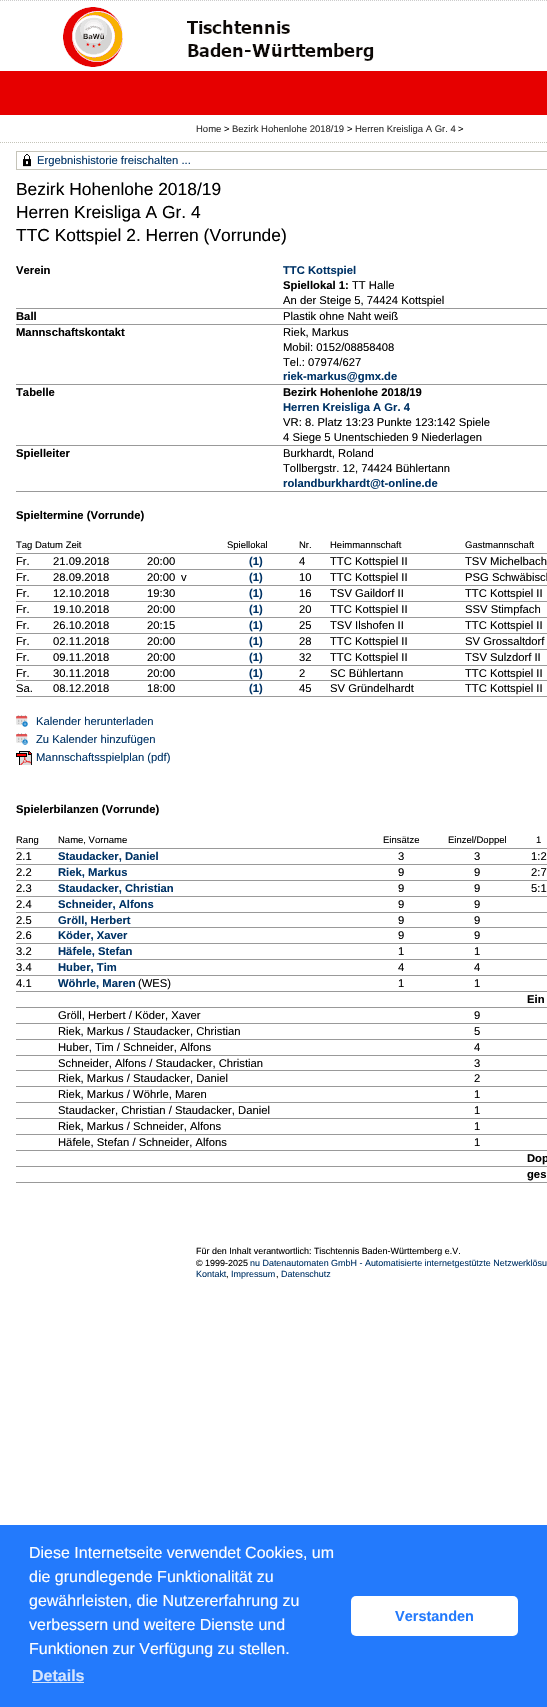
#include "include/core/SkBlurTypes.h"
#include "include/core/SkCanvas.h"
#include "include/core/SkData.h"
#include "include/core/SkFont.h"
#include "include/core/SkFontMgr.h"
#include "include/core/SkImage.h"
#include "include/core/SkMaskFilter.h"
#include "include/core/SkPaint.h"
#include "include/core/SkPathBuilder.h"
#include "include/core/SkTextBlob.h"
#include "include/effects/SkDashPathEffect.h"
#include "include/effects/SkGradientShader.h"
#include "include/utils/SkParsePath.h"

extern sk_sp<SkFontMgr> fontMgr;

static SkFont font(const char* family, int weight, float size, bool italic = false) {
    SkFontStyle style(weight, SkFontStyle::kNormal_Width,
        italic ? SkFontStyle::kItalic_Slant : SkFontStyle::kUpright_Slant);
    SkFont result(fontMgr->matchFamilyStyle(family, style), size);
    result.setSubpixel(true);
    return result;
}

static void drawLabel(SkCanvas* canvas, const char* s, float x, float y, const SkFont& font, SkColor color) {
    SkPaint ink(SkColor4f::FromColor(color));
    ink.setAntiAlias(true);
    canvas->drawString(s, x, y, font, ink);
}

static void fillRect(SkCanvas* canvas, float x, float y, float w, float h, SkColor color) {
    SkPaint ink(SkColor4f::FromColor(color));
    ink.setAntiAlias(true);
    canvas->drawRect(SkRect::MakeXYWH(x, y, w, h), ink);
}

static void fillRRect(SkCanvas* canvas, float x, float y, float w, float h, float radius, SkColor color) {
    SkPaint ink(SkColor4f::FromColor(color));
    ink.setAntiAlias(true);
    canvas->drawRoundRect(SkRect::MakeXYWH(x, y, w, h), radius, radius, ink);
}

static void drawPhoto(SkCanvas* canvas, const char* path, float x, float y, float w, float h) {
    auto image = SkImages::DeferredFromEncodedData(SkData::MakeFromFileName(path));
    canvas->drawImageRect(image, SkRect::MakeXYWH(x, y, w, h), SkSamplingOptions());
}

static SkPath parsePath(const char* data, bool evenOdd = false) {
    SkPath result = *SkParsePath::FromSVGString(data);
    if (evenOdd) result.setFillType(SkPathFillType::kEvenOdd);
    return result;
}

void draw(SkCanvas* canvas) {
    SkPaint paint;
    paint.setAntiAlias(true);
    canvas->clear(0xFFFFFFFF);
    paint.setStroke(true);
    paint.setStrokeWidth(1);
    paint.setColor(0xFFCCCCCC);
    paint.setPathEffect(SkDashPathEffect::Make({{1, 1}}, 0));
    canvas->drawPath(parsePath("M0 .5H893"), paint);
    paint.setPathEffect(nullptr);
    drawPhoto(canvas, "assets/img1.png", 63, 7, 311, 60);
    fillRect(canvas, 0, 71, 547, 44, 0xFFE60000);
    paint.setColor(0xFFC5C4B9);
    paint.setPathEffect(SkDashPathEffect::Make({{1, 1}}, 0));
    canvas->drawPath(parsePath("M0 142.5H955"), paint);
    paint.setPathEffect(nullptr);
    SkFont font1 = font("Liberation Sans", 400, 9.5f);
    drawLabel(canvas, "Home", 196, 132, font1, 0xFF333333);
    drawLabel(canvas, ">", 224, 132, font1, 0xFF000000);
    drawLabel(canvas, "Bezirk Hohenlohe 2018/19", 232, 132, font1, 0xFF333333);
    drawLabel(canvas, ">", 347, 132, font1, 0xFF000000);
    drawLabel(canvas, "Herren Kreisliga A Gr. 4", 355, 132, font1, 0xFF333333);
    drawLabel(canvas, ">", 458, 132, font1, 0xFF000000);
    canvas->drawRect(SkRect::MakeXYWH(16.5f, 151.5f, 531, 18), paint);
    drawPhoto(canvas, "assets/img2.png", 23, 154, 8, 13);
    SkFont font2 = font("Liberation Sans", 400, 11.25f);
    drawLabel(canvas, "Ergebnishistorie freischalten ...", 37, 164, font2, 0xFF003366);
    SkFont font3 = font("Liberation Sans", 400, 17.4f);
    drawLabel(canvas, "Bezirk Hohenlohe 2018/19", 16, 195, font3, 0xFF000000);
    drawLabel(canvas, "Herren Kreisliga A Gr. 4", 16, 218, font3, 0xFF000000);
    drawLabel(canvas, "TTC Kottspiel 2. Herren (Vorrunde)", 16, 241, font3, 0xFF000000);
    fillRect(canvas, 16, 308, 531, 1, 0xFF999999);
    SkFont font4 = font("Liberation Sans", 700, 11.25f);
    drawLabel(canvas, "Verein", 16, 274, font4, 0xFF000000);
    drawLabel(canvas, "TTC Kottspiel", 283, 274, font4, 0xFF003366);
    drawLabel(canvas, "Spiellokal 1:", 283, 289, font4, 0xFF000000);
    drawLabel(canvas, "TT Halle", 352, 289, font2, 0xFF000000);
    drawLabel(canvas, "An der Steige 5, 74424 Kottspiel", 283, 304, font2, 0xFF000000);
    fillRect(canvas, 16, 324, 531, 1, 0xFF999999);
    drawLabel(canvas, "Ball", 16, 320, font4, 0xFF000000);
    drawLabel(canvas, "Plastik ohne Naht weiß", 283, 320, font2, 0xFF000000);
    fillRect(canvas, 16, 384, 531, 1, 0xFF999999);
    drawLabel(canvas, "Mannschaftskontakt", 16, 336, font4, 0xFF000000);
    drawLabel(canvas, "Riek, Markus", 283, 336, font2, 0xFF000000);
    drawLabel(canvas, "Mobil: 0152/08858408", 283, 351, font2, 0xFF000000);
    drawLabel(canvas, "Tel.: 07974/627", 283, 366, font2, 0xFF000000);
    drawLabel(canvas, "riek-markus@gmx.de", 283, 380, font4, 0xFF003366);
    fillRect(canvas, 16, 445, 531, 1, 0xFF999999);
    drawLabel(canvas, "Tabelle", 16, 396, font4, 0xFF000000);
    drawLabel(canvas, "Bezirk Hohenlohe 2018/19", 283, 396, font4, 0xFF000000);
    drawLabel(canvas, "Herren Kreisliga A Gr. 4", 283, 411, font4, 0xFF003366);
    drawLabel(canvas, "VR: 8. Platz 13:23 Punkte 123:142 Spiele", 283, 426, font2, 0xFF000000);
    drawLabel(canvas, "4 Siege 5 Unentschieden 9 Niederlagen", 283, 441, font2, 0xFF000000);
    fillRect(canvas, 16, 491, 531, 1, 0xFF999999);
    drawLabel(canvas, "Spielleiter", 16, 457, font4, 0xFF000000);
    drawLabel(canvas, "Burkhardt, Roland", 283, 457, font2, 0xFF000000);
    drawLabel(canvas, "Tollbergstr. 12, 74424 Bühlertann", 283, 472, font2, 0xFF000000);
    drawLabel(canvas, "rolandburkhardt@t-online.de", 283, 487, font4, 0xFF003366);
    drawLabel(canvas, "Spieltermine (Vorrunde)", 16, 519, font4, 0xFF000000);
    fillRect(canvas, 16, 553, 531, 1, 0xFF999999);
    drawLabel(canvas, "Tag Datum Zeit", 16, 548, font1, 0xFF000000);
    drawLabel(canvas, "Spiellokal", 227, 548, font1, 0xFF000000);
    drawLabel(canvas, "Nr.", 299, 548, font1, 0xFF000000);
    drawLabel(canvas, "Heimmannschaft", 330, 548, font1, 0xFF000000);
    drawLabel(canvas, "Gastmannschaft", 465, 548, font1, 0xFF000000);
    fillRect(canvas, 16, 569, 531, 1, 0xFF999999);
    drawLabel(canvas, "Fr.", 16, 565, font2, 0xFF000000);
    drawLabel(canvas, "21.09.2018", 53, 565, font2, 0xFF000000);
    drawLabel(canvas, "20:00", 147, 565, font2, 0xFF000000);
    drawLabel(canvas, "(1)", 249, 565, font4, 0xFF003366);
    drawLabel(canvas, "4", 299, 565, font2, 0xFF000000);
    drawLabel(canvas, "TTC Kottspiel II", 330, 565, font2, 0xFF000000);
    drawLabel(canvas, "TSV Michelbach", 465, 565, font2, 0xFF000000);
    fillRect(canvas, 16, 585, 531, 1, 0xFF999999);
    drawLabel(canvas, "Fr.", 16, 581, font2, 0xFF000000);
    drawLabel(canvas, "28.09.2018", 53, 581, font2, 0xFF000000);
    drawLabel(canvas, "20:00", 147, 581, font2, 0xFF000000);
    drawLabel(canvas, "v", 181, 581, font2, 0xFF000000);
    drawLabel(canvas, "(1)", 249, 581, font4, 0xFF003366);
    drawLabel(canvas, "10", 299, 581, font2, 0xFF000000);
    drawLabel(canvas, "TTC Kottspiel II", 330, 581, font2, 0xFF000000);
    drawLabel(canvas, "PSG Schwäbisch", 465, 581, font2, 0xFF000000);
    fillRect(canvas, 16, 601, 531, 1, 0xFF999999);
    drawLabel(canvas, "Fr.", 16, 597, font2, 0xFF000000);
    drawLabel(canvas, "12.10.2018", 53, 597, font2, 0xFF000000);
    drawLabel(canvas, "19:30", 147, 597, font2, 0xFF000000);
    drawLabel(canvas, "(1)", 249, 597, font4, 0xFF003366);
    drawLabel(canvas, "16", 299, 597, font2, 0xFF000000);
    drawLabel(canvas, "TSV Gaildorf II", 330, 597, font2, 0xFF000000);
    drawLabel(canvas, "TTC Kottspiel II", 465, 597, font2, 0xFF000000);
    fillRect(canvas, 16, 617, 531, 1, 0xFF999999);
    drawLabel(canvas, "Fr.", 16, 613, font2, 0xFF000000);
    drawLabel(canvas, "19.10.2018", 53, 613, font2, 0xFF000000);
    drawLabel(canvas, "20:00", 147, 613, font2, 0xFF000000);
    drawLabel(canvas, "(1)", 249, 613, font4, 0xFF003366);
    drawLabel(canvas, "20", 299, 613, font2, 0xFF000000);
    drawLabel(canvas, "TTC Kottspiel II", 330, 613, font2, 0xFF000000);
    drawLabel(canvas, "SSV Stimpfach", 465, 613, font2, 0xFF000000);
    fillRect(canvas, 16, 633, 531, 1, 0xFF999999);
    drawLabel(canvas, "Fr.", 16, 629, font2, 0xFF000000);
    drawLabel(canvas, "26.10.2018", 53, 629, font2, 0xFF000000);
    drawLabel(canvas, "20:15", 147, 629, font2, 0xFF000000);
    drawLabel(canvas, "(1)", 249, 629, font4, 0xFF003366);
    drawLabel(canvas, "25", 299, 629, font2, 0xFF000000);
    drawLabel(canvas, "TSV Ilshofen II", 330, 629, font2, 0xFF000000);
    drawLabel(canvas, "TTC Kottspiel II", 465, 629, font2, 0xFF000000);
    fillRect(canvas, 16, 649, 531, 1, 0xFF999999);
    drawLabel(canvas, "Fr.", 16, 645, font2, 0xFF000000);
    drawLabel(canvas, "02.11.2018", 53, 645, font2, 0xFF000000);
    drawLabel(canvas, "20:00", 147, 645, font2, 0xFF000000);
    drawLabel(canvas, "(1)", 249, 645, font4, 0xFF003366);
    drawLabel(canvas, "28", 299, 645, font2, 0xFF000000);
    drawLabel(canvas, "TTC Kottspiel II", 330, 645, font2, 0xFF000000);
    drawLabel(canvas, "SV Grossaltdorf", 465, 645, font2, 0xFF000000);
    fillRect(canvas, 16, 665, 531, 1, 0xFF999999);
    drawLabel(canvas, "Fr.", 16, 661, font2, 0xFF000000);
    drawLabel(canvas, "09.11.2018", 53, 661, font2, 0xFF000000);
    drawLabel(canvas, "20:00", 147, 661, font2, 0xFF000000);
    drawLabel(canvas, "(1)", 249, 661, font4, 0xFF003366);
    drawLabel(canvas, "32", 299, 661, font2, 0xFF000000);
    drawLabel(canvas, "TTC Kottspiel II", 330, 661, font2, 0xFF000000);
    drawLabel(canvas, "TSV Sulzdorf II", 465, 661, font2, 0xFF000000);
    fillRect(canvas, 16, 680, 531, 1, 0xFF999999);
    drawLabel(canvas, "Fr.", 16, 677, font2, 0xFF000000);
    drawLabel(canvas, "30.11.2018", 53, 677, font2, 0xFF000000);
    drawLabel(canvas, "20:00", 147, 677, font2, 0xFF000000);
    drawLabel(canvas, "(1)", 249, 677, font4, 0xFF003366);
    drawLabel(canvas, "2", 299, 677, font2, 0xFF000000);
    drawLabel(canvas, "SC Bühlertann", 330, 677, font2, 0xFF000000);
    drawLabel(canvas, "TTC Kottspiel II", 465, 677, font2, 0xFF000000);
    fillRect(canvas, 16, 696, 531, 1, 0xFF999999);
    drawLabel(canvas, "Sa.", 16, 692, font2, 0xFF000000);
    drawLabel(canvas, "08.12.2018", 53, 692, font2, 0xFF000000);
    drawLabel(canvas, "18:00", 147, 692, font2, 0xFF000000);
    drawLabel(canvas, "(1)", 249, 692, font4, 0xFF003366);
    drawLabel(canvas, "45", 299, 692, font2, 0xFF000000);
    drawLabel(canvas, "SV Gründelhardt", 330, 692, font2, 0xFF000000);
    drawLabel(canvas, "TTC Kottspiel II", 465, 692, font2, 0xFF000000);
    drawPhoto(canvas, "assets/img3.png", 16, 715, 12, 12);
    drawLabel(canvas, "Kalender herunterladen", 36, 725, font2, 0xFF003366);
    drawPhoto(canvas, "assets/img4.png", 16, 733, 12, 12);
    drawLabel(canvas, "Zu Kalender hinzufügen", 36, 743, font2, 0xFF003366);
    drawPhoto(canvas, "assets/img5.png", 16, 751, 16, 14);
    drawLabel(canvas, "Mannschaftsspielplan (pdf)", 36, 761, font2, 0xFF003366);
    drawLabel(canvas, "Spielerbilanzen (Vorrunde)", 16, 813, font4, 0xFF000000);
    fillRect(canvas, 16, 848, 531, 1, 0xFF999999);
    drawLabel(canvas, "Rang", 16, 843, font1, 0xFF000000);
    drawLabel(canvas, "Name, Vorname", 58, 843, font1, 0xFF000000);
    drawLabel(canvas, "Einsätze", 383, 843, font1, 0xFF000000);
    drawLabel(canvas, "Einzel/Doppel", 448, 843, font1, 0xFF000000);
    drawLabel(canvas, "1", 536, 843, font1, 0xFF000000);
    fillRect(canvas, 16, 864, 531, 1, 0xFF999999);
    drawLabel(canvas, "2.1", 16, 860, font2, 0xFF000000);
    drawLabel(canvas, "Staudacker, Daniel", 58, 860, font4, 0xFF003366);
    drawLabel(canvas, "3", 398, 860, font2, 0xFF000000);
    drawLabel(canvas, "3", 474, 860, font2, 0xFF000000);
    drawLabel(canvas, "1:2", 531, 860, font2, 0xFF000000);
    fillRect(canvas, 16, 880, 531, 1, 0xFF999999);
    drawLabel(canvas, "2.2", 16, 876, font2, 0xFF000000);
    drawLabel(canvas, "Riek, Markus", 58, 876, font4, 0xFF003366);
    drawLabel(canvas, "9", 398, 876, font2, 0xFF000000);
    drawLabel(canvas, "9", 474, 876, font2, 0xFF000000);
    drawLabel(canvas, "2:7", 531, 876, font2, 0xFF000000);
    fillRect(canvas, 16, 896, 531, 1, 0xFF999999);
    drawLabel(canvas, "2.3", 16, 892, font2, 0xFF000000);
    drawLabel(canvas, "Staudacker, Christian", 58, 892, font4, 0xFF003366);
    drawLabel(canvas, "9", 398, 892, font2, 0xFF000000);
    drawLabel(canvas, "9", 474, 892, font2, 0xFF000000);
    drawLabel(canvas, "5:1", 531, 892, font2, 0xFF000000);
    fillRect(canvas, 16, 912, 531, 1, 0xFF999999);
    drawLabel(canvas, "2.4", 16, 908, font2, 0xFF000000);
    drawLabel(canvas, "Schneider, Alfons", 58, 908, font4, 0xFF003366);
    drawLabel(canvas, "9", 398, 908, font2, 0xFF000000);
    drawLabel(canvas, "9", 474, 908, font2, 0xFF000000);
    fillRect(canvas, 16, 927, 531, 1, 0xFF999999);
    drawLabel(canvas, "2.5", 16, 924, font2, 0xFF000000);
    drawLabel(canvas, "Gröll, Herbert", 58, 924, font4, 0xFF003366);
    drawLabel(canvas, "9", 398, 924, font2, 0xFF000000);
    drawLabel(canvas, "9", 474, 924, font2, 0xFF000000);
    fillRect(canvas, 16, 943, 531, 1, 0xFF999999);
    drawLabel(canvas, "2.6", 16, 939, font2, 0xFF000000);
    drawLabel(canvas, "Köder, Xaver", 58, 939, font4, 0xFF003366);
    drawLabel(canvas, "9", 398, 939, font2, 0xFF000000);
    drawLabel(canvas, "9", 474, 939, font2, 0xFF000000);
    fillRect(canvas, 16, 959, 531, 1, 0xFF999999);
    drawLabel(canvas, "3.2", 16, 955, font2, 0xFF000000);
    drawLabel(canvas, "Häfele, Stefan", 58, 955, font4, 0xFF003366);
    drawLabel(canvas, "1", 398, 955, font2, 0xFF000000);
    drawLabel(canvas, "1", 474, 955, font2, 0xFF000000);
    fillRect(canvas, 16, 975, 531, 1, 0xFF999999);
    drawLabel(canvas, "3.4", 16, 971, font2, 0xFF000000);
    drawLabel(canvas, "Huber, Tim", 58, 971, font4, 0xFF003366);
    drawLabel(canvas, "4", 398, 971, font2, 0xFF000000);
    drawLabel(canvas, "4", 474, 971, font2, 0xFF000000);
    fillRect(canvas, 16, 991, 531, 1, 0xFF999999);
    drawLabel(canvas, "4.1", 16, 987, font2, 0xFF000000);
    drawLabel(canvas, "Wöhrle, Maren", 58, 987, font4, 0xFF003366);
    drawLabel(canvas, "(WES)", 138, 987, font2, 0xFF000000);
    drawLabel(canvas, "1", 398, 987, font2, 0xFF000000);
    drawLabel(canvas, "1", 474, 987, font2, 0xFF000000);
    drawLabel(canvas, "Ein", 527, 1003, font4, 0xFF000000);
    fillRect(canvas, 16, 1007, 531, 1, 0xFF999999);
    drawLabel(canvas, "Gröll, Herbert / Köder, Xaver", 58, 1019, font2, 0xFF000000);
    drawLabel(canvas, "9", 474, 1019, font2, 0xFF000000);
    fillRect(canvas, 16, 1023, 531, 1, 0xFF999999);
    drawLabel(canvas, "Riek, Markus / Staudacker, Christian", 58, 1035, font2, 0xFF000000);
    drawLabel(canvas, "5", 474, 1035, font2, 0xFF000000);
    fillRect(canvas, 16, 1039, 531, 1, 0xFF999999);
    drawLabel(canvas, "Huber, Tim / Schneider, Alfons", 58, 1051, font2, 0xFF000000);
    drawLabel(canvas, "4", 474, 1051, font2, 0xFF000000);
    fillRect(canvas, 16, 1055, 531, 1, 0xFF999999);
    drawLabel(canvas, "Schneider, Alfons / Staudacker, Christian", 58, 1067, font2, 0xFF000000);
    drawLabel(canvas, "3", 474, 1067, font2, 0xFF000000);
    fillRect(canvas, 16, 1070, 531, 1, 0xFF999999);
    drawLabel(canvas, "Riek, Markus / Staudacker, Daniel", 58, 1082, font2, 0xFF000000);
    drawLabel(canvas, "2", 474, 1082, font2, 0xFF000000);
    fillRect(canvas, 16, 1086, 531, 1, 0xFF999999);
    drawLabel(canvas, "Riek, Markus / Wöhrle, Maren", 58, 1098, font2, 0xFF000000);
    drawLabel(canvas, "1", 474, 1098, font2, 0xFF000000);
    fillRect(canvas, 16, 1102, 531, 1, 0xFF999999);
    drawLabel(canvas, "Staudacker, Christian / Staudacker, Daniel", 58, 1114, font2, 0xFF000000);
    drawLabel(canvas, "1", 474, 1114, font2, 0xFF000000);
    fillRect(canvas, 16, 1118, 531, 1, 0xFF999999);
    drawLabel(canvas, "Riek, Markus / Schneider, Alfons", 58, 1130, font2, 0xFF000000);
    drawLabel(canvas, "1", 474, 1130, font2, 0xFF000000);
    fillRect(canvas, 16, 1134, 531, 1, 0xFF999999);
    drawLabel(canvas, "Häfele, Stefan / Schneider, Alfons", 58, 1146, font2, 0xFF000000);
    drawLabel(canvas, "1", 474, 1146, font2, 0xFF000000);
    fillRect(canvas, 16, 1150, 531, 1, 0xFF999999);
    drawLabel(canvas, "Dop", 527, 1162, font4, 0xFF000000);
    fillRect(canvas, 16, 1166, 531, 1, 0xFF999999);
    drawLabel(canvas, "ges", 527, 1178, font4, 0xFF000000);
    fillRect(canvas, 16, 1182, 531, 1, 0xFF999999);
    SkFont font5 = font("Liberation Sans", 400, 8.95f);
    drawLabel(canvas, "Für den Inhalt verantwortlich: Tischtennis Baden-Württemberg e.V.", 196, 1254, font5, 0xFF000000);
    drawLabel(canvas, "© 1999-2025", 196, 1266, font5, 0xFF000000);
    drawLabel(canvas, "nu Datenautomaten GmbH - Automatisierte internetgestützte Netzwerklösu", 250, 1266, font5, 0xFF003366);
    drawLabel(canvas, "Kontakt", 196, 1277, font5, 0xFF003366);
    drawLabel(canvas, ",", 226, 1277, font5, 0xFF000000);
    drawLabel(canvas, "Impressum", 231, 1277, font5, 0xFF003366);
    drawLabel(canvas, ",", 276, 1277, font5, 0xFF000000);
    drawLabel(canvas, "Datenschutz", 281, 1277, font5, 0xFF003366);
    fillRect(canvas, 0, 1525, 547, 182, 0xFF237AFC);
    SkFont font6 = font("Liberation Sans", 400, 16);
    drawLabel(canvas, "Diese Internetseite verwendet Cookies, um", 29, 1558, font6, 0xFFFFFFFF);
    drawLabel(canvas, "die grundlegende Funktionalität zu", 29, 1582, font6, 0xFFFFFFFF);
    drawLabel(canvas, "gewährleisten, die Nutzererfahrung zu", 29, 1606, font6, 0xFFFFFFFF);
    drawLabel(canvas, "verbessern und weitere Dienste und", 29, 1630, font6, 0xFFFFFFFF);
    drawLabel(canvas, "Funktionen zur Verfügung zu stellen.", 29, 1654, font6, 0xFFFFFFFF);
    SkFont font7 = font("Liberation Sans", 700, 16);
    drawLabel(canvas, "Details", 32, 1681, font7, 0xFFD3E4FE);
    fillRect(canvas, 32, 1682, 52, 1, 0xFFD3E4FE);
    fillRRect(canvas, 351, 1596, 167, 40, 5, 0xFFFFFFFF);
    SkFont font8 = font("Liberation Sans", 700, 14.5f);
    drawLabel(canvas, "Verstanden", 395, 1621, font8, 0xFF237AFC);
}
